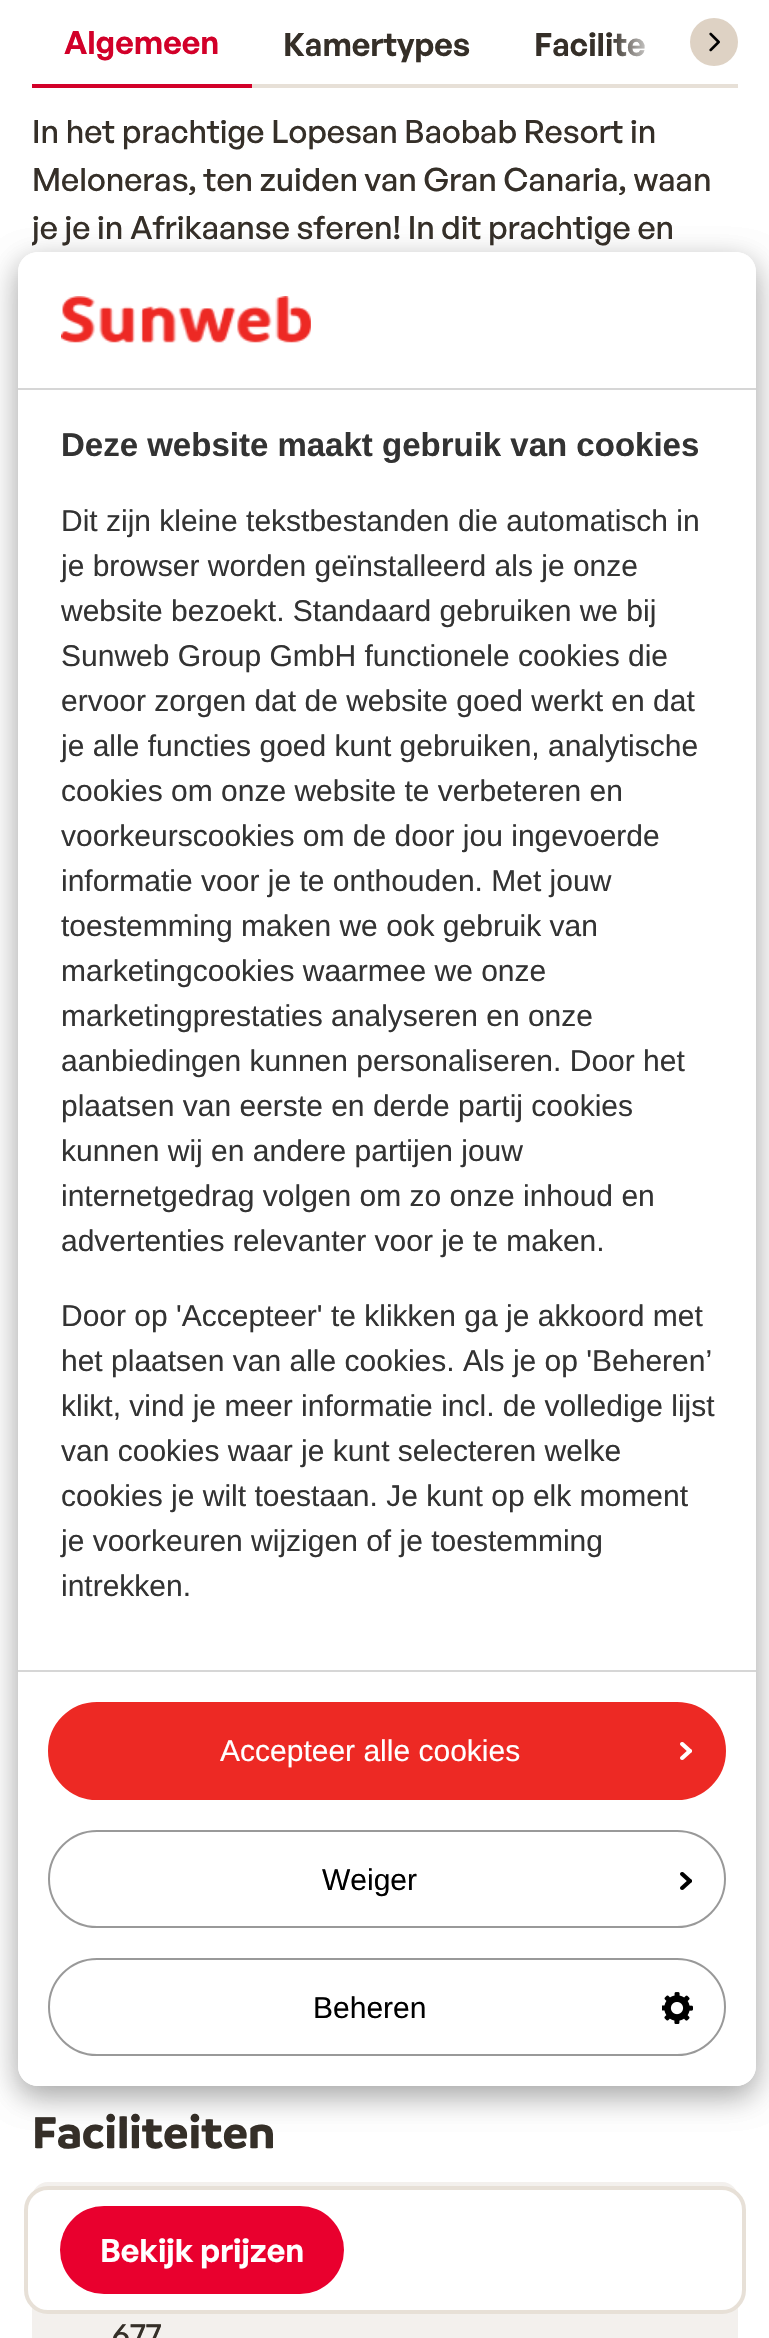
#include "include/core/SkBlurTypes.h"
#include "include/core/SkCanvas.h"
#include "include/core/SkData.h"
#include "include/core/SkFont.h"
#include "include/core/SkFontMgr.h"
#include "include/core/SkImage.h"
#include "include/core/SkMaskFilter.h"
#include "include/core/SkPaint.h"
#include "include/core/SkPathBuilder.h"
#include "include/core/SkTextBlob.h"
#include "include/effects/SkDashPathEffect.h"
#include "include/effects/SkGradientShader.h"
#include "include/utils/SkParsePath.h"

extern sk_sp<SkFontMgr> fontMgr;

static SkFont font(const char* family, int weight, float size, bool italic = false) {
    SkFontStyle style(weight, SkFontStyle::kNormal_Width,
        italic ? SkFontStyle::kItalic_Slant : SkFontStyle::kUpright_Slant);
    SkFont result(fontMgr->matchFamilyStyle(family, style), size);
    result.setSubpixel(true);
    return result;
}

static void drawLabel(SkCanvas* canvas, const char* s, float x, float y, const SkFont& font, SkColor color) {
    SkPaint ink(SkColor4f::FromColor(color));
    ink.setAntiAlias(true);
    canvas->drawString(s, x, y, font, ink);
}

static void fillRect(SkCanvas* canvas, float x, float y, float w, float h, SkColor color) {
    SkPaint ink(SkColor4f::FromColor(color));
    ink.setAntiAlias(true);
    canvas->drawRect(SkRect::MakeXYWH(x, y, w, h), ink);
}

static void fillRRect(SkCanvas* canvas, float x, float y, float w, float h, float radius, SkColor color) {
    SkPaint ink(SkColor4f::FromColor(color));
    ink.setAntiAlias(true);
    canvas->drawRoundRect(SkRect::MakeXYWH(x, y, w, h), radius, radius, ink);
}

static void drawPhoto(SkCanvas* canvas, const char* path, float x, float y, float w, float h) {
    auto image = SkImages::DeferredFromEncodedData(SkData::MakeFromFileName(path));
    canvas->drawImageRect(image, SkRect::MakeXYWH(x, y, w, h), SkSamplingOptions());
}

static SkPath parsePath(const char* data, bool evenOdd = false) {
    SkPath result = *SkParsePath::FromSVGString(data);
    if (evenOdd) result.setFillType(SkPathFillType::kEvenOdd);
    return result;
}

void draw(SkCanvas* canvas) {
    SkPaint paint;
    paint.setAntiAlias(true);
    canvas->clear(0xFFFFFFFF);
    fillRect(canvas, 252, 84, 486, 4, 0xFFE7E0D7);
    fillRect(canvas, 32, 84, 220, 4, 0xFFD20029);
    SkFont font1 = font("General Sans", 600, 32);
    drawLabel(canvas, "Algemeen", 64, 54, font1, 0xFFD20029);
    drawLabel(canvas, "Kamertypes", 283, 56, font1, 0xFF352F28);
    drawLabel(canvas, "Facilite", 534, 56, font1, 0xFF352F28);
    {
        const SkColor colors[] = {0xFFFFFFFF, 0x00FFFFFF};
        const float stops[] = {0.37f, 1};
        const SkPoint ends[] = {{690, 40}, {610, 40}};
        paint.setShader(SkGradientShader::MakeLinear(ends, colors, stops, 2, SkTileMode::kClamp));
        paint.setAlpha(255);
    }
    canvas->drawRect(SkRect::MakeXYWH(611, 33, 35, 24), paint);
    paint.setShader(nullptr);
    paint.setColor(0xFFDED2C4);
    canvas->drawCircle(714, 42, 24, paint);
    drawPhoto(canvas, "assets/img1.png", 709, 32, 11, 20);
    SkFont font2 = font("General Sans", 500, 32);
    drawLabel(canvas, "In het prachtige Lopesan Baobab Resort in", 32, 143, font2, 0xFF352F28);
    drawLabel(canvas, "Meloneras, ten zuiden van Gran Canaria, waan", 32, 191, font2, 0xFF352F28);
    canvas->save();
    canvas->clipRect(SkRect::MakeXYWH(32, 108, 706, 144));
    drawLabel(canvas, "je je in Afrikaanse sferen! In dit prachtige en", 32, 239, font2, 0xFF352F28);
    canvas->restore();
    SkFont font3 = font("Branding", 700, 48);
    drawLabel(canvas, "Faciliteiten", 32, 2148, font3, 0xFF352F28);
    fillRRect(canvas, 32, 2182, 706, 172, 16, 0xFFF3F0ED);
    drawLabel(canvas, "677", 112, 2346, font2, 0xFF352F28);
    paint.setColor(0xFFFFFFFF);
    canvas->drawRoundRect(SkRect::MakeXYWH(26, 2188, 718, 124), 22, 22, paint);
    paint.setStroke(true);
    paint.setStrokeWidth(4);
    paint.setColor(0xFFE7E0D7);
    canvas->drawRoundRect(SkRect::MakeXYWH(26, 2188, 718, 124), 22, 22, paint);
    fillRRect(canvas, 60, 2206, 284, 88, 44, 0xFFE9002E);
    drawLabel(canvas, "Bekijk prijzen", 100, 2262, font1, 0xFFFFFFFF);
    paint.setStroke(false);
    paint.setColor(0x30000000);
    paint.setMaskFilter(SkMaskFilter::MakeBlur(kNormal_SkBlurStyle, 15));
    canvas->drawRoundRect(SkRect::MakeXYWH(18, 262, 738, 1834), 20, 20, paint);
    paint.setMaskFilter(nullptr);
    paint.setColor(0x33000000);
    paint.setMaskFilter(SkMaskFilter::MakeBlur(kNormal_SkBlurStyle, 15));
    canvas->drawRoundRect(SkRect::MakeXYWH(18, 262, 738, 1834), 20, 20, paint);
    paint.setMaskFilter(nullptr);
    fillRRect(canvas, 18, 252, 738, 1834, 20, 0xFFFFFFFF);
    paint.setColor(0xFFFFFFFF);
    canvas->drawPath(parsePath("M38 252H736C747 252 756 261 756 272V390H18V272C18 261 27 252 38 252Z"), paint);
    fillRect(canvas, 18, 388, 738, 2, 0xFFD6D6D6);
    drawPhoto(canvas, "assets/img2.png", 61, 296, 250, 47);
    SkFont font4 = font("Liberation Sans", 700, 33);
    drawLabel(canvas, "Deze website maakt gebruik van cookies", 61, 456, font4, 0xFF333333);
    SkFont font5 = font("Liberation Sans", 400, 30);
    drawLabel(canvas, "Dit zijn kleine tekstbestanden die automatisch in", 61, 531, font5, 0xFF333333);
    drawLabel(canvas, "je browser worden geïnstalleerd als je onze", 61, 576, font5, 0xFF333333);
    drawLabel(canvas, "website bezoekt. Standaard gebruiken we bij", 61, 621, font5, 0xFF333333);
    drawLabel(canvas, "Sunweb Group GmbH functionele cookies die", 61, 666, font5, 0xFF333333);
    drawLabel(canvas, "ervoor zorgen dat de website goed werkt en dat", 61, 711, font5, 0xFF333333);
    drawLabel(canvas, "je alle functies goed kunt gebruiken, analytische", 61, 756, font5, 0xFF333333);
    drawLabel(canvas, "cookies om onze website te verbeteren en", 61, 801, font5, 0xFF333333);
    drawLabel(canvas, "voorkeurscookies om de door jou ingevoerde", 61, 846, font5, 0xFF333333);
    drawLabel(canvas, "informatie voor je te onthouden. Met jouw", 61, 891, font5, 0xFF333333);
    drawLabel(canvas, "toestemming maken we ook gebruik van", 61, 936, font5, 0xFF333333);
    drawLabel(canvas, "marketingcookies waarmee we onze", 61, 981, font5, 0xFF333333);
    drawLabel(canvas, "marketingprestaties analyseren en onze", 61, 1026, font5, 0xFF333333);
    drawLabel(canvas, "aanbiedingen kunnen personaliseren. Door het", 61, 1071, font5, 0xFF333333);
    drawLabel(canvas, "plaatsen van eerste en derde partij cookies", 61, 1116, font5, 0xFF333333);
    drawLabel(canvas, "kunnen wij en andere partijen jouw", 61, 1161, font5, 0xFF333333);
    drawLabel(canvas, "internetgedrag volgen om zo onze inhoud en", 61, 1206, font5, 0xFF333333);
    drawLabel(canvas, "advertenties relevanter voor je te maken.", 61, 1251, font5, 0xFF333333);
    drawLabel(canvas, "Door op 'Accepteer' te klikken ga je akkoord met", 61, 1326, font5, 0xFF333333);
    drawLabel(canvas, "het plaatsen van alle cookies. Als je op 'Beheren’", 61, 1371, font5, 0xFF333333);
    drawLabel(canvas, "klikt, vind je meer informatie incl. de volledige lijst", 61, 1416, font5, 0xFF333333);
    drawLabel(canvas, "van cookies waar je kunt selecteren welke", 61, 1461, font5, 0xFF333333);
    drawLabel(canvas, "cookies je wilt toestaan. Je kunt op elk moment", 61, 1506, font5, 0xFF333333);
    drawLabel(canvas, "je voorkeuren wijzigen of je toestemming", 61, 1551, font5, 0xFF333333);
    drawLabel(canvas, "intrekken.", 61, 1596, font5, 0xFF333333);
    canvas->drawPath(parsePath("M18 1670H756V2066C756 2077 747 2086 736 2086H38C27 2086 18 2077 18 2066Z"), paint);
    fillRect(canvas, 18, 1670, 738, 2, 0xFFD6D6D6);
    paint.setColor(0xFFED2924);
    canvas->drawRoundRect(SkRect::MakeXYWH(49, 1703, 676, 96), 48, 48, paint);
    paint.setStroke(true);
    paint.setStrokeWidth(2);
    canvas->drawRoundRect(SkRect::MakeXYWH(49, 1703, 676, 96), 48, 48, paint);
    drawLabel(canvas, "Accepteer alle cookies", 220, 1761, font5, 0xFFFFFFFF);
    drawPhoto(canvas, "assets/img3.png", 680, 1742, 12, 18);
    paint.setColor(0xFF999999);
    canvas->drawRoundRect(SkRect::MakeXYWH(49, 1831, 676, 96), 48, 48, paint);
    drawLabel(canvas, "Weiger", 322, 1890, font5, 0xFF000000);
    drawPhoto(canvas, "assets/img4.png", 680, 1872, 12, 18);
    canvas->drawRoundRect(SkRect::MakeXYWH(49, 1959, 676, 96), 48, 48, paint);
    drawLabel(canvas, "Beheren", 313, 2018, font5, 0xFF000000);
    drawPhoto(canvas, "assets/img5.png", 662, 1992, 31, 32);
}
